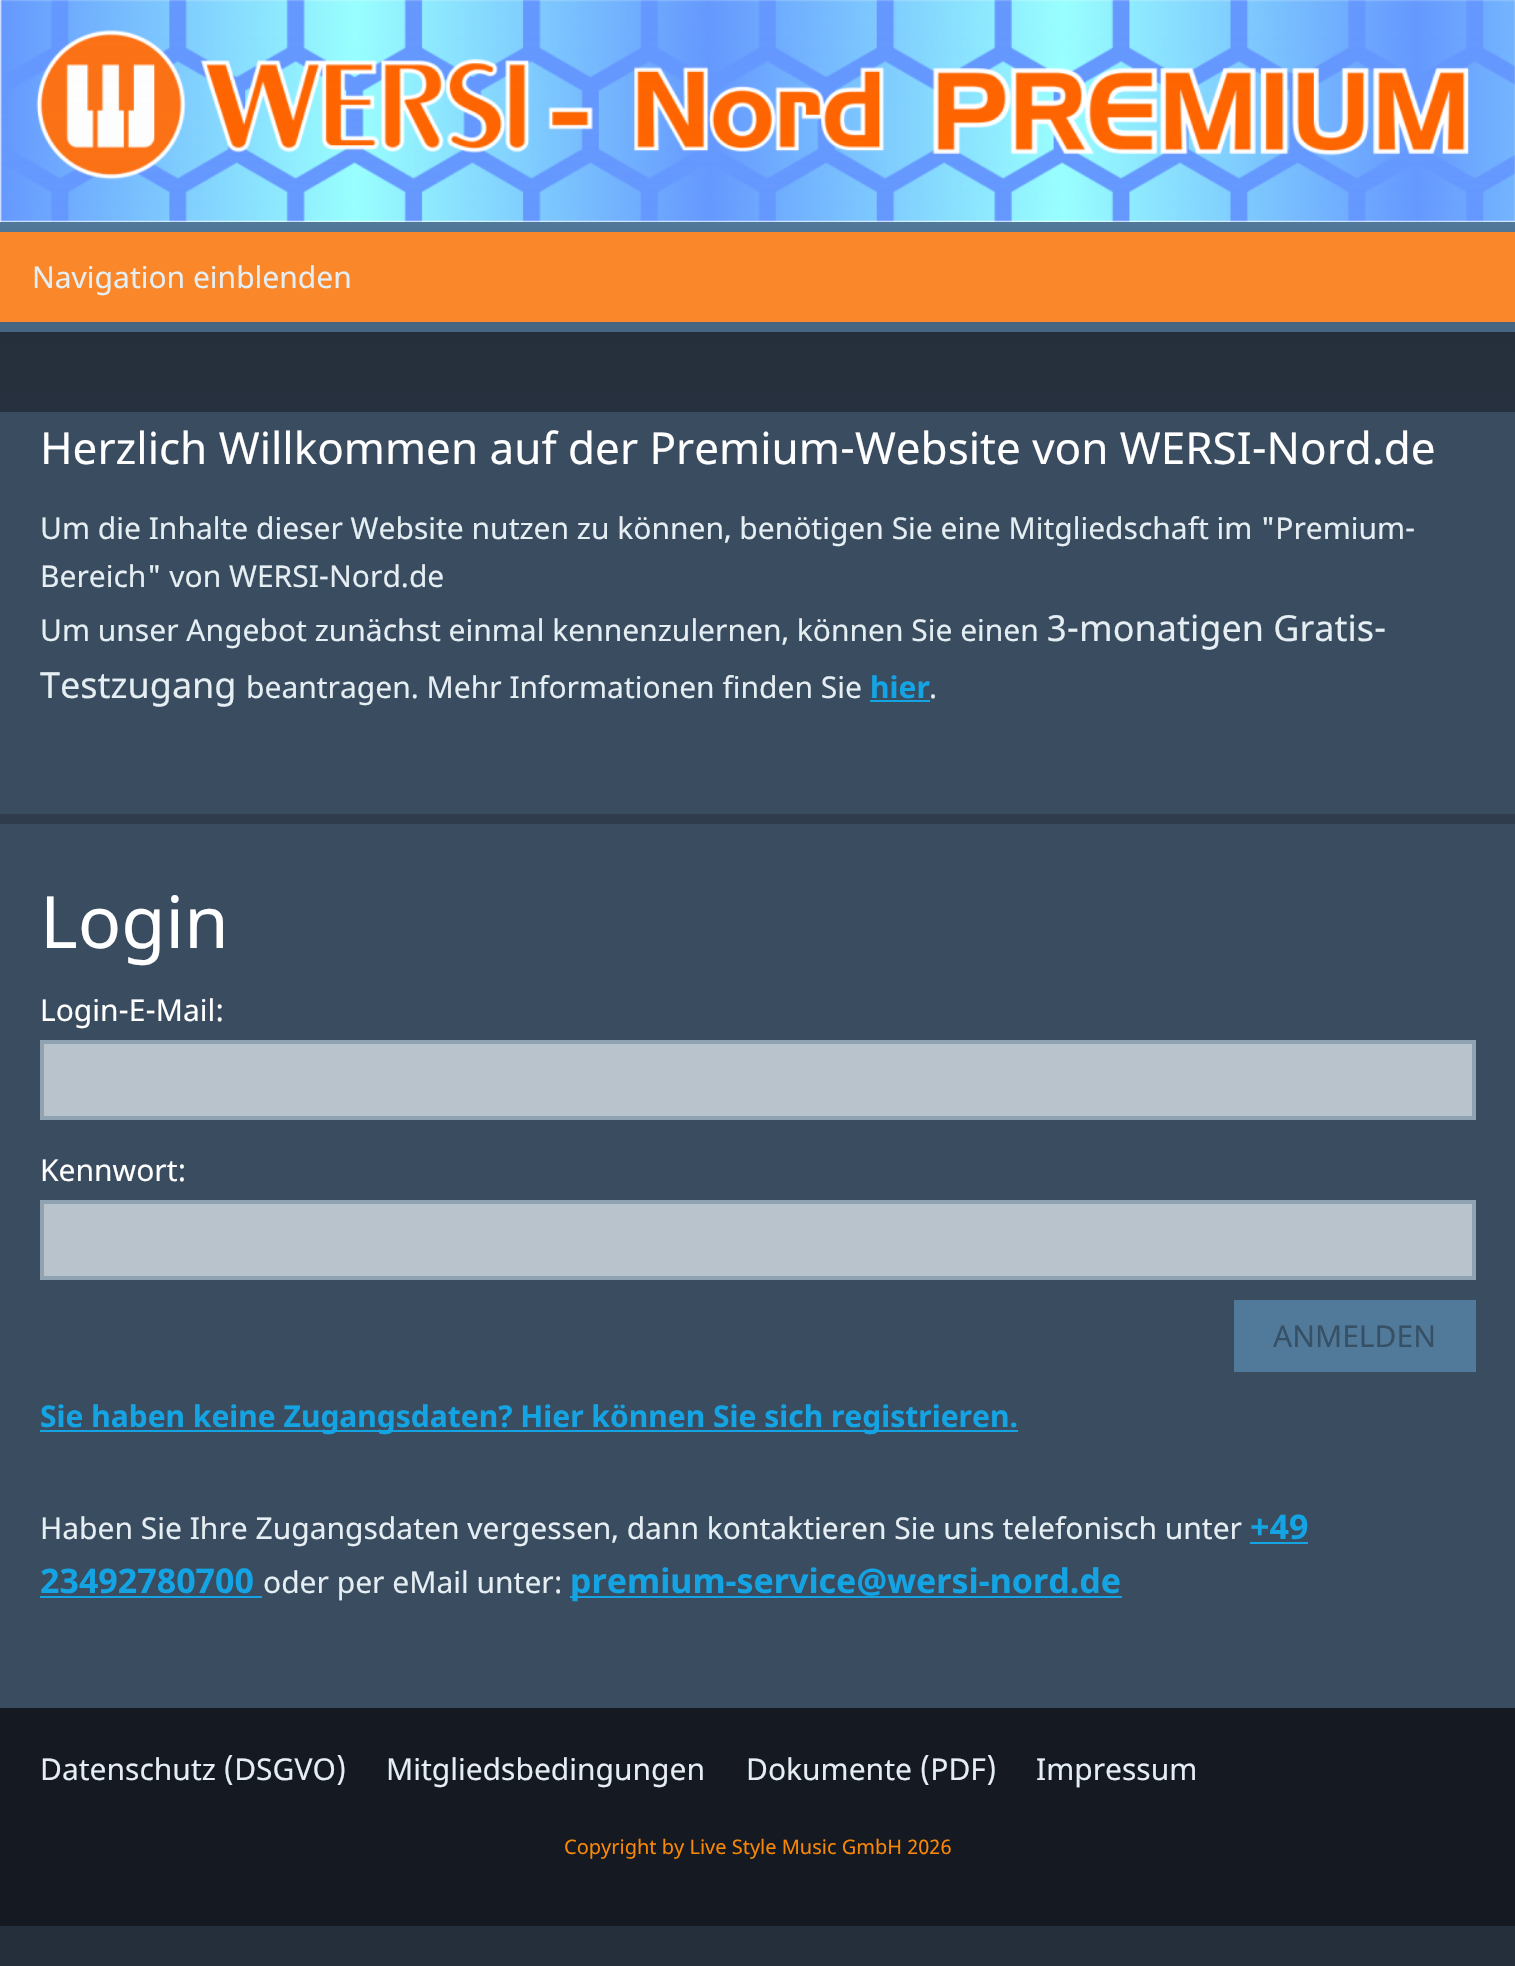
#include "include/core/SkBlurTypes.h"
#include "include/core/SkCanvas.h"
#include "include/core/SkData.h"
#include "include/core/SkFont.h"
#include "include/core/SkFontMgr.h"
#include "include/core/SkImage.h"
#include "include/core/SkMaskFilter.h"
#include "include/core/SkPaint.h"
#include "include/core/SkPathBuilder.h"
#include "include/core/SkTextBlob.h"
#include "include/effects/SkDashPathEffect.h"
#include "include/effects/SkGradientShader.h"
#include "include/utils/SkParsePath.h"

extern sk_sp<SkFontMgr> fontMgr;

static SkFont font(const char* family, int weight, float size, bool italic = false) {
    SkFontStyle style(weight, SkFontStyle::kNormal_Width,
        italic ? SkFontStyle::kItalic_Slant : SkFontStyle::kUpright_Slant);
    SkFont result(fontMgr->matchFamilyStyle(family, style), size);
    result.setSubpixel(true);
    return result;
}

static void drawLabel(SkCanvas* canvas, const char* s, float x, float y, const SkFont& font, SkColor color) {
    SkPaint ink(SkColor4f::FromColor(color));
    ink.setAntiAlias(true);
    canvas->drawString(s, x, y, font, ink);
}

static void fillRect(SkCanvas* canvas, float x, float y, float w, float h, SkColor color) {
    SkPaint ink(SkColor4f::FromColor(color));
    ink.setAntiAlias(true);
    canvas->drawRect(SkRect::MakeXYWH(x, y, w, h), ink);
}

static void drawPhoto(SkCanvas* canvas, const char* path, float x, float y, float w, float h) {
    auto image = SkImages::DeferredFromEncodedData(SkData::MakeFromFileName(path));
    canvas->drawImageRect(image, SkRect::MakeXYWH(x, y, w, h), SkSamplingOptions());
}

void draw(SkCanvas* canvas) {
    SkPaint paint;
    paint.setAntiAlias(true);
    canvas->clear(0xFF252E3B);
    drawPhoto(canvas, "assets/img1.png", 0, 0, 1515, 222);
    fillRect(canvas, 0, 322, 1515, 10, 0xFF456580);
    drawPhoto(canvas, "assets/img2.png", 0, 222, 1515, 10);
    fillRect(canvas, 0, 232, 1515, 90, 0xFFFA872A);
    SkFont font1 = font("Noto Sans", 400, 30);
    drawLabel(canvas, "Navigation einblenden", 32, 288, font1, 0xFFE5EEF2);
    drawPhoto(canvas, "assets/img3.png", 0, 332, 1515, 492);
    fillRect(canvas, 0, 412, 1515, 402, 0xFF3A4C60);
    SkFont font2 = font("Noto Sans", 400, 44);
    drawLabel(canvas, "Herzlich Willkommen auf der Premium-Website von WERSI-Nord.de", 40, 464, font2, 0xFFFFFFFF);
    drawLabel(canvas, "Um die Inhalte dieser Website nutzen zu können, benötigen Sie eine Mitgliedschaft im \"Premium-", 40, 539, font1, 0xFFE5EEF2);
    drawLabel(canvas, "Bereich\" von WERSI-Nord.de", 40, 587, font1, 0xFFE5EEF2);
    drawLabel(canvas, "Um unser Angebot zunächst einmal kennenzulernen, können Sie einen", 40, 641, font1, 0xFFE5EEF2);
    SkFont font3 = font("Noto Sans", 400, 36);
    drawLabel(canvas, "3-monatigen Gratis-", 1047, 641, font3, 0xFFE5EEF2);
    drawLabel(canvas, "Testzugang", 40, 698, font3, 0xFFE5EEF2);
    drawLabel(canvas, "beantragen. Mehr Informationen finden Sie", 246, 698, font1, 0xFFE5EEF2);
    SkFont font4 = font("Noto Sans", 700, 30);
    drawLabel(canvas, "hier", 870, 698, font4, 0xFF14A4E4);
    fillRect(canvas, 870, 700, 60, 2, 0xFF14A4E4);
    drawLabel(canvas, ".", 929, 698, font1, 0xFFE5EEF2);
    fillRect(canvas, 0, 824, 1515, 884, 0xFF3A4C60);
    SkFont font5 = font("Noto Sans", 400, 72);
    drawLabel(canvas, "Login", 40, 948, font5, 0xFFFFFFFF);
    drawLabel(canvas, "Login-E-Mail:", 40, 1021, font1, 0xFFFFFFFF);
    paint.setColor(0xFFB8C3CC);
    canvas->drawRect(SkRect::MakeXYWH(42, 1042, 1432, 76), paint);
    paint.setStroke(true);
    paint.setStrokeWidth(4);
    paint.setColor(0xFF90A3B2);
    canvas->drawRect(SkRect::MakeXYWH(42, 1042, 1432, 76), paint);
    drawLabel(canvas, "Kennwort:", 40, 1181, font1, 0xFFFFFFFF);
    paint.setStroke(false);
    paint.setColor(0xFFB8C3CC);
    canvas->drawRect(SkRect::MakeXYWH(42, 1202, 1432, 76), paint);
    paint.setStroke(true);
    paint.setColor(0xFF90A3B2);
    canvas->drawRect(SkRect::MakeXYWH(42, 1202, 1432, 76), paint);
    fillRect(canvas, 1234, 1300, 242, 72, 0xFF517999);
    drawLabel(canvas, "ANMELDEN", 1273, 1347, font1, 0xFF365066);
    fillRect(canvas, 40, 1430, 978, 2, 0xFF14A4E4);
    drawLabel(canvas, "Sie haben keine Zugangsdaten? Hier können Sie sich registrieren.", 40, 1427, font4, 0xFF14A4E4);
    drawLabel(canvas, "Haben Sie Ihre Zugangsdaten vergessen, dann kontaktieren Sie uns telefonisch unter", 40, 1539, font1, 0xFFE5EEF2);
    SkFont font6 = font("Noto Sans", 700, 34);
    drawLabel(canvas, "+49", 1250, 1539, font6, 0xFF14A4E4);
    fillRect(canvas, 1250, 1542, 58, 2, 0xFF14A4E4);
    drawLabel(canvas, "23492780700", 40, 1593, font6, 0xFF14A4E4);
    fillRect(canvas, 40, 1596, 222, 2, 0xFF14A4E4);
    drawLabel(canvas, "oder per eMail unter:", 263, 1593, font1, 0xFFE5EEF2);
    fillRect(canvas, 570, 1596, 552, 2, 0xFF14A4E4);
    drawLabel(canvas, "premium-service@wersi-nord.de", 570, 1593, font6, 0xFF14A4E4);
    fillRect(canvas, 0, 1708, 1515, 218, 0xFF151A22);
    drawLabel(canvas, "Datenschutz (DSGVO)", 40, 1780, font1, 0xFFE5EEF2);
    drawLabel(canvas, "Mitgliedsbedingungen", 386, 1780, font1, 0xFFE5EEF2);
    drawLabel(canvas, "Dokumente (PDF)", 746, 1780, font1, 0xFFE5EEF2);
    drawLabel(canvas, "Impressum", 1036, 1780, font1, 0xFFE5EEF2);
    SkFont font7 = font("Noto Sans", 400, 20);
    drawLabel(canvas, "Copyright by Live Style Music GmbH 2026", 564, 1854, font7, 0xFFF98707);
}
